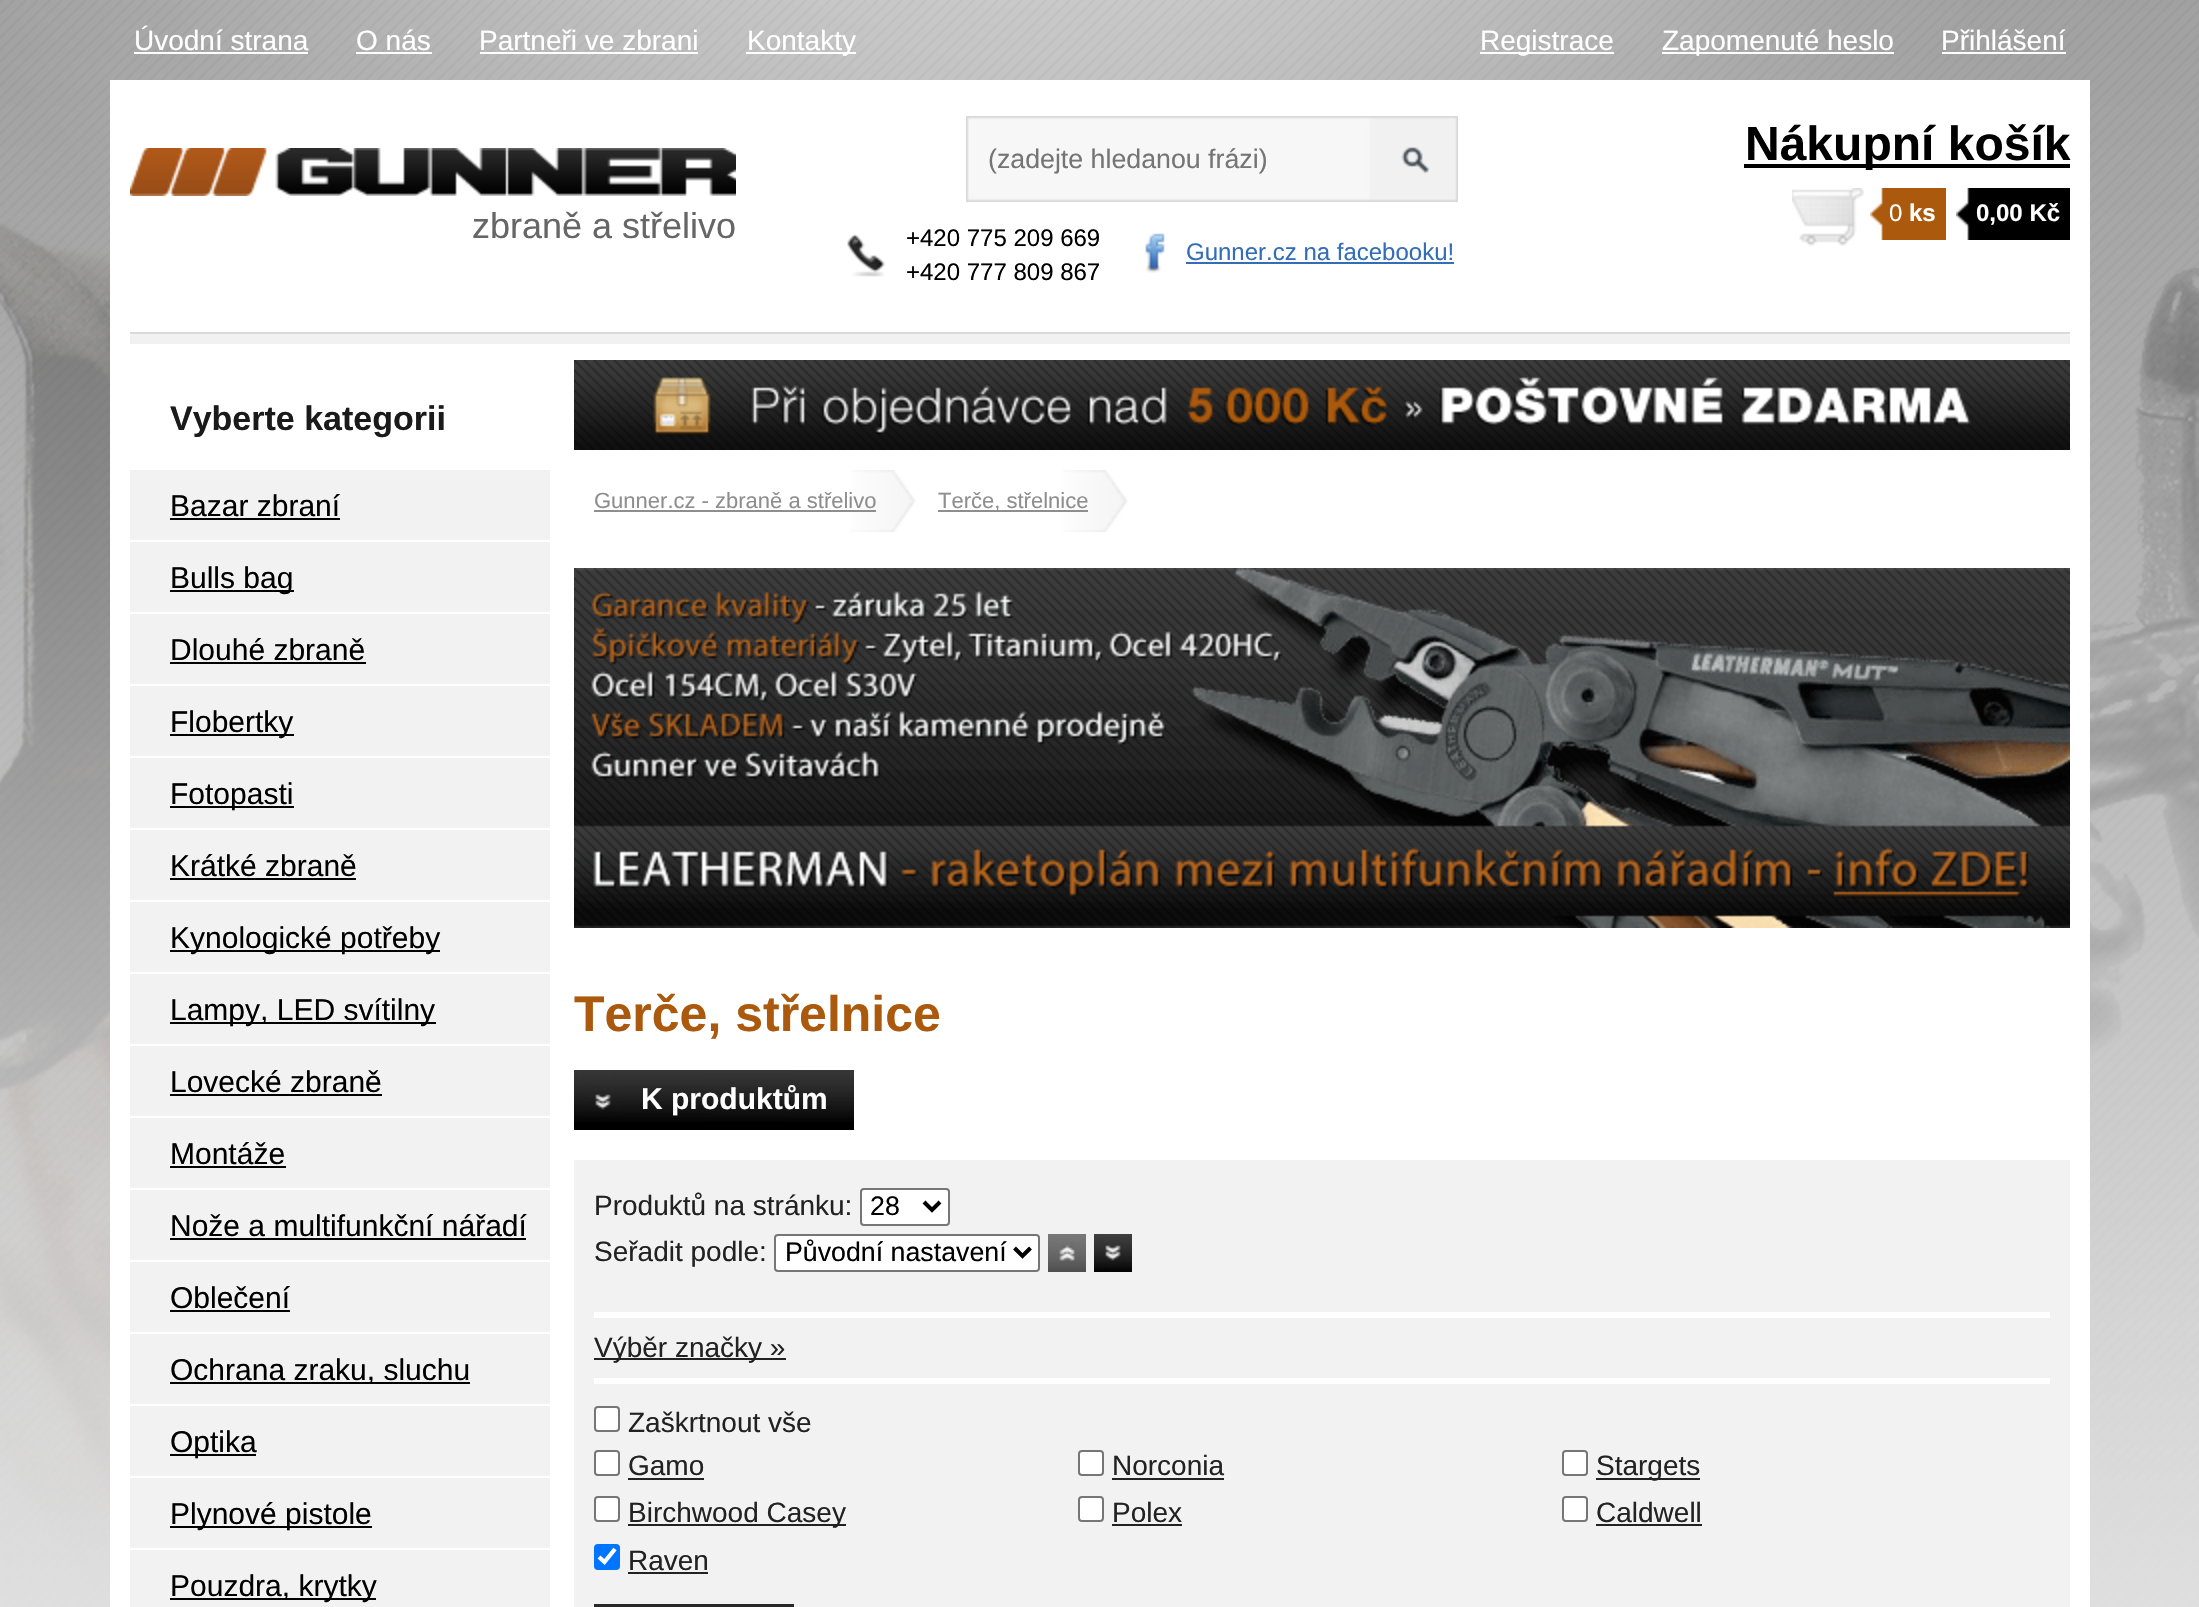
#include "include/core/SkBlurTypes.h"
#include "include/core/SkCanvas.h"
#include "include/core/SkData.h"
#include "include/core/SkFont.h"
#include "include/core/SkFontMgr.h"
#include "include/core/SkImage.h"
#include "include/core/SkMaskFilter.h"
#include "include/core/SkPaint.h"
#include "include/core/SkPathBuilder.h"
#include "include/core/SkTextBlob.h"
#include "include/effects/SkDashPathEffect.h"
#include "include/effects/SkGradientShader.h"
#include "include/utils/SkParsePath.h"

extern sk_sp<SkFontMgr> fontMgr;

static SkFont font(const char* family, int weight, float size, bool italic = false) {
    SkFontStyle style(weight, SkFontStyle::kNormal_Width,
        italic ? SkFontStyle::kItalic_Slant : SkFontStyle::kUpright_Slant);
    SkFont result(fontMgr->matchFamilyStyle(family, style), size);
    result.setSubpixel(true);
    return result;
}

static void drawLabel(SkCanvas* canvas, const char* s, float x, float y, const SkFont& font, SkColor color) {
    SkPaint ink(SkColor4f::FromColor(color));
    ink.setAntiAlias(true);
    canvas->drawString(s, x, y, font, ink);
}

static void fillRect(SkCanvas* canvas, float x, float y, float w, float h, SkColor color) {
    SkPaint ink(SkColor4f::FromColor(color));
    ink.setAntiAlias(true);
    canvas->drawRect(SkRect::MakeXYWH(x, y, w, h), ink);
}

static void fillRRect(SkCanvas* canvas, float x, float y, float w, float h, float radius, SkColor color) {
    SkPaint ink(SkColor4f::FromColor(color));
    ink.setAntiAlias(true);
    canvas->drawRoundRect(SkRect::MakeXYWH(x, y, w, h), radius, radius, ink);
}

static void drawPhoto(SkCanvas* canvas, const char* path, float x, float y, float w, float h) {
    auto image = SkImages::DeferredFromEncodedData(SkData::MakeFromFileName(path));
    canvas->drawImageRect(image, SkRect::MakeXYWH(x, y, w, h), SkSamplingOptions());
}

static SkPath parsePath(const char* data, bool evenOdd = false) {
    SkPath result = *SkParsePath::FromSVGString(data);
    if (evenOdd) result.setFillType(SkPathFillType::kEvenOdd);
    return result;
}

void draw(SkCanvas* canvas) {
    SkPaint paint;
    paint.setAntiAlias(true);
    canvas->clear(0xFFFFFFFF);
    drawPhoto(canvas, "assets/img1.png", 0, 0, 2199, 1607);
    SkFont font1 = font("Liberation Sans", 400, 28);
    drawLabel(canvas, "Úvodní strana", 134, 50, font1, 0xFFFFFFFF);
    fillRect(canvas, 134, 52, 174, 2, 0xFFFFFFFF);
    drawLabel(canvas, "O nás", 356, 50, font1, 0xFFFFFFFF);
    fillRect(canvas, 356, 52, 76, 2, 0xFFFFFFFF);
    drawLabel(canvas, "Partneři ve zbrani", 479, 50, font1, 0xFFFFFFFF);
    fillRect(canvas, 480, 52, 218, 2, 0xFFFFFFFF);
    fillRect(canvas, 746, 52, 110, 2, 0xFFFFFFFF);
    drawLabel(canvas, "Kontakty", 747, 50, font1, 0xFFFFFFFF);
    fillRect(canvas, 1480, 52, 134, 2, 0xFFFFFFFF);
    drawLabel(canvas, "Registrace", 1480, 50, font1, 0xFFFFFFFF);
    fillRect(canvas, 1662, 52, 232, 2, 0xFFFFFFFF);
    drawLabel(canvas, "Zapomenuté heslo", 1662, 50, font1, 0xFFFFFFFF);
    drawLabel(canvas, "Přihlášení", 1941, 50, font1, 0xFFFFFFFF);
    fillRect(canvas, 1942, 52, 124, 2, 0xFFFFFFFF);
    fillRect(canvas, 110, 80, 1980, 1527, 0xFFFFFFFF);
    drawPhoto(canvas, "assets/img2.png", 966, 116, 404, 86);
    SkFont font2 = font("Liberation Sans", 400, 26.75f);
    drawLabel(canvas, "(zadejte hledanou frázi)", 988, 168, font2, 0xFF757575);
    drawPhoto(canvas, "assets/img3.png", 1370, 116, 88, 86);
    fillRect(canvas, 1744, 164, 326, 4, 0xFF000000);
    SkFont font3 = font("Liberation Sans", 700, 48);
    drawLabel(canvas, "Nákupní košík", 1745, 160, font3, 0xFF000000);
    drawPhoto(canvas, "assets/img4.png", 1792, 188, 72, 58);
    fillRect(canvas, 1883, 188, 63, 52, 0xFFAB590C);
    drawPhoto(canvas, "assets/img5.png", 1870, 188, 13, 52);
    SkFont font4 = font("Liberation Sans", 400, 24);
    drawLabel(canvas, "0", 1889, 221, font4, 0xFFFFFFFF);
    SkFont font5 = font("Liberation Sans", 700, 24);
    drawLabel(canvas, "ks", 1909, 221, font5, 0xFFFFFFFF);
    fillRect(canvas, 1970, 188, 100, 52, 0xFF000000);
    drawPhoto(canvas, "assets/img6.png", 1956, 188, 14, 52);
    drawLabel(canvas, "0,00 Kč", 1976, 221, font5, 0xFFFFFFFF);
    drawPhoto(canvas, "assets/img7.png", 130, 148, 606, 48);
    SkFont font6 = font("Liberation Sans", 400, 36);
    drawLabel(canvas, "zbraně a střelivo", 472, 238, font6, 0xFF666666);
    drawPhoto(canvas, "assets/img8.png", 847, 234, 38, 43);
    drawLabel(canvas, "+420 775 209 669", 906, 246, font4, 0xFF000000);
    drawLabel(canvas, "+420 777 809 867", 906, 280, font4, 0xFF000000);
    drawPhoto(canvas, "assets/img9.png", 1145, 233, 20, 40);
    drawLabel(canvas, "Gunner.cz na facebooku!", 1186, 260, font4, 0xFF336DBA);
    fillRect(canvas, 1186, 262, 268, 2, 0xFF336DBA);
    fillRect(canvas, 130, 334, 1940, 10, 0xFFF1F1F1);
    fillRect(canvas, 130, 332, 1940, 2, 0xFFD9D9D9);
    SkFont font7 = font("Liberation Sans", 700, 34);
    drawLabel(canvas, "Vyberte kategorii", 170, 430, font7, 0xFF1A1A1A);
    fillRect(canvas, 130, 470, 420, 70, 0xFFF2F2F2);
    SkFont font8 = font("Liberation Sans", 400, 30);
    drawLabel(canvas, "Bazar zbraní", 170, 516, font8, 0xFF000000);
    fillRect(canvas, 170, 518, 170, 2, 0xFF000000);
    fillRect(canvas, 130, 542, 420, 70, 0xFFF2F2F2);
    fillRect(canvas, 170, 590, 124, 2, 0xFF000000);
    drawLabel(canvas, "Bulls bag", 170, 588, font8, 0xFF000000);
    fillRect(canvas, 130, 614, 420, 70, 0xFFF2F2F2);
    drawLabel(canvas, "Dlouhé zbraně", 170, 660, font8, 0xFF000000);
    fillRect(canvas, 170, 662, 196, 2, 0xFF000000);
    fillRect(canvas, 130, 686, 420, 70, 0xFFF2F2F2);
    fillRect(canvas, 170, 734, 124, 2, 0xFF000000);
    drawLabel(canvas, "Flobertky", 170, 732, font8, 0xFF000000);
    fillRect(canvas, 130, 758, 420, 70, 0xFFF2F2F2);
    fillRect(canvas, 170, 806, 124, 2, 0xFF000000);
    drawLabel(canvas, "Fotopasti", 170, 804, font8, 0xFF000000);
    fillRect(canvas, 130, 830, 420, 70, 0xFFF2F2F2);
    drawLabel(canvas, "Krátké zbraně", 170, 876, font8, 0xFF000000);
    fillRect(canvas, 170, 878, 186, 2, 0xFF000000);
    fillRect(canvas, 130, 902, 420, 70, 0xFFF2F2F2);
    fillRect(canvas, 170, 950, 270, 2, 0xFF000000);
    drawLabel(canvas, "Kynologické potřeby", 170, 948, font8, 0xFF000000);
    fillRect(canvas, 130, 974, 420, 70, 0xFFF2F2F2);
    fillRect(canvas, 170, 1022, 266, 2, 0xFF000000);
    drawLabel(canvas, "Lampy, LED svítilny", 170, 1020, font8, 0xFF000000);
    fillRect(canvas, 130, 1046, 420, 70, 0xFFF2F2F2);
    drawLabel(canvas, "Lovecké zbraně", 170, 1092, font8, 0xFF000000);
    fillRect(canvas, 170, 1094, 212, 2, 0xFF000000);
    fillRect(canvas, 130, 1118, 420, 70, 0xFFF2F2F2);
    drawLabel(canvas, "Montáže", 170, 1164, font8, 0xFF000000);
    fillRect(canvas, 170, 1166, 116, 2, 0xFF000000);
    fillRect(canvas, 130, 1190, 420, 70, 0xFFF2F2F2);
    drawLabel(canvas, "Nože a multifunkční nářadí", 170, 1236, font8, 0xFF000000);
    fillRect(canvas, 170, 1238, 356, 2, 0xFF000000);
    fillRect(canvas, 130, 1262, 420, 70, 0xFFF2F2F2);
    drawLabel(canvas, "Oblečení", 170, 1308, font8, 0xFF000000);
    fillRect(canvas, 170, 1310, 120, 2, 0xFF000000);
    fillRect(canvas, 130, 1334, 420, 70, 0xFFF2F2F2);
    fillRect(canvas, 170, 1382, 300, 2, 0xFF000000);
    drawLabel(canvas, "Ochrana zraku, sluchu", 170, 1380, font8, 0xFF000000);
    fillRect(canvas, 130, 1406, 420, 70, 0xFFF2F2F2);
    fillRect(canvas, 170, 1454, 86, 2, 0xFF000000);
    drawLabel(canvas, "Optika", 170, 1452, font8, 0xFF000000);
    fillRect(canvas, 130, 1478, 420, 70, 0xFFF2F2F2);
    fillRect(canvas, 170, 1526, 202, 2, 0xFF000000);
    drawLabel(canvas, "Plynové pistole", 170, 1524, font8, 0xFF000000);
    fillRect(canvas, 130, 1550, 420, 57, 0xFFF2F2F2);
    fillRect(canvas, 170, 1598, 206, 2, 0xFF000000);
    drawLabel(canvas, "Pouzdra, krytky", 170, 1596, font8, 0xFF000000);
    drawPhoto(canvas, "assets/img10.png", 574, 360, 1496, 90);
    drawPhoto(canvas, "assets/img11.png", 851, 470, 65, 62);
    SkFont font9 = font("Liberation Sans", 400, 22);
    drawLabel(canvas, "Gunner.cz - zbraně a střelivo", 594, 508, font9, 0xFF8E8E8E);
    fillRect(canvas, 594, 510, 282, 2, 0xFF8E8E8E);
    drawPhoto(canvas, "assets/img11.png", 1063, 470, 65, 62);
    fillRect(canvas, 938, 510, 150, 2, 0xFF8E8E8E);
    drawLabel(canvas, "Terče, střelnice", 938, 508, font9, 0xFF8E8E8E);
    drawPhoto(canvas, "assets/img12.png", 574, 568, 1496, 360);
    SkFont font10 = font("Liberation Sans", 700, 50);
    drawLabel(canvas, "Terče, střelnice", 574, 1031, font10, 0xFFAB590C);
    fillRect(canvas, 574, 1122, 280, 8, 0xFF000000);
    drawPhoto(canvas, "assets/img13.png", 574, 1070, 280, 52);
    SkFont font11 = font("Liberation Sans", 700, 30);
    drawLabel(canvas, "K produktům", 641, 1109, font11, 0xFFFFFFFF);
    fillRect(canvas, 574, 1160, 1496, 447, 0xFFF2F2F2);
    drawLabel(canvas, "Produktů na stránku:", 594, 1215, font1, 0xFF222222);
    paint.setColor(0xFFFFFFFF);
    canvas->drawRoundRect(SkRect::MakeXYWH(861, 1189, 88, 36), 3, 3, paint);
    paint.setStroke(true);
    paint.setStrokeWidth(2);
    paint.setColor(0xFF767676);
    canvas->drawRoundRect(SkRect::MakeXYWH(861, 1189, 88, 36), 3, 3, paint);
    paint.setStrokeWidth(4);
    paint.setColor(0xFF000000);
    canvas->drawPath(parsePath("M924 1202L932 1210L940 1202"), paint);
    drawLabel(canvas, "28", 870, 1215, font2, 0xFF000000);
    drawLabel(canvas, "Seřadit podle:", 594, 1261, font1, 0xFF222222);
    paint.setStroke(false);
    paint.setColor(0xFFFFFFFF);
    canvas->drawRoundRect(SkRect::MakeXYWH(775, 1235, 264, 36), 3, 3, paint);
    paint.setStroke(true);
    paint.setStrokeWidth(2);
    paint.setColor(0xFF767676);
    canvas->drawRoundRect(SkRect::MakeXYWH(775, 1235, 264, 36), 3, 3, paint);
    paint.setStrokeWidth(4);
    paint.setColor(0xFF000000);
    canvas->drawPath(parsePath("M1014.5 1248L1022.5 1256L1030.5 1248"), paint);
    drawLabel(canvas, "Původní nastavení", 785, 1261, font2, 0xFF000000);
    drawPhoto(canvas, "assets/img14.png", 1048, 1234, 38, 38);
    drawPhoto(canvas, "assets/img15.png", 1094, 1234, 38, 38);
    fillRect(canvas, 594, 1312, 1456, 6, 0xFFFFFFFF);
    fillRect(canvas, 594, 1358, 192, 2, 0xFF222222);
    drawLabel(canvas, "Výběr značky »", 594, 1357, font1, 0xFF222222);
    fillRect(canvas, 594, 1378, 1456, 6, 0xFFFFFFFF);
    paint.setStroke(false);
    paint.setColor(0xFFFFFFFF);
    canvas->drawRoundRect(SkRect::MakeXYWH(595, 1407, 24, 24), 3, 3, paint);
    paint.setStroke(true);
    paint.setStrokeWidth(2);
    paint.setColor(0xFF767676);
    canvas->drawRoundRect(SkRect::MakeXYWH(595, 1407, 24, 24), 3, 3, paint);
    drawLabel(canvas, "Zaškrtnout vše", 628, 1432, font1, 0xFF222222);
    paint.setStroke(false);
    paint.setColor(0xFFFFFFFF);
    canvas->drawRoundRect(SkRect::MakeXYWH(595, 1451, 24, 24), 3, 3, paint);
    paint.setStroke(true);
    paint.setColor(0xFF767676);
    canvas->drawRoundRect(SkRect::MakeXYWH(595, 1451, 24, 24), 3, 3, paint);
    drawLabel(canvas, "Gamo", 628, 1475, font1, 0xFF222222);
    fillRect(canvas, 628, 1478, 76, 2, 0xFF222222);
    paint.setStroke(false);
    paint.setColor(0xFFFFFFFF);
    canvas->drawRoundRect(SkRect::MakeXYWH(1079, 1451, 24, 24), 3, 3, paint);
    paint.setStroke(true);
    paint.setColor(0xFF767676);
    canvas->drawRoundRect(SkRect::MakeXYWH(1079, 1451, 24, 24), 3, 3, paint);
    drawLabel(canvas, "Norconia", 1112, 1475, font1, 0xFF222222);
    fillRect(canvas, 1112, 1478, 112, 2, 0xFF222222);
    paint.setStroke(false);
    paint.setColor(0xFFFFFFFF);
    canvas->drawRoundRect(SkRect::MakeXYWH(1563, 1451, 24, 24), 3, 3, paint);
    paint.setStroke(true);
    paint.setColor(0xFF767676);
    canvas->drawRoundRect(SkRect::MakeXYWH(1563, 1451, 24, 24), 3, 3, paint);
    fillRect(canvas, 1596, 1478, 104, 2, 0xFF222222);
    drawLabel(canvas, "Stargets", 1596, 1475, font1, 0xFF222222);
    paint.setStroke(false);
    paint.setColor(0xFFFFFFFF);
    canvas->drawRoundRect(SkRect::MakeXYWH(595, 1497, 24, 24), 3, 3, paint);
    paint.setStroke(true);
    paint.setColor(0xFF767676);
    canvas->drawRoundRect(SkRect::MakeXYWH(595, 1497, 24, 24), 3, 3, paint);
    fillRect(canvas, 628, 1524, 218, 2, 0xFF222222);
    drawLabel(canvas, "Birchwood Casey", 628, 1522, font1, 0xFF222222);
    paint.setStroke(false);
    paint.setColor(0xFFFFFFFF);
    canvas->drawRoundRect(SkRect::MakeXYWH(1079, 1497, 24, 24), 3, 3, paint);
    paint.setStroke(true);
    paint.setColor(0xFF767676);
    canvas->drawRoundRect(SkRect::MakeXYWH(1079, 1497, 24, 24), 3, 3, paint);
    drawLabel(canvas, "Polex", 1112, 1522, font1, 0xFF222222);
    fillRect(canvas, 1112, 1524, 70, 2, 0xFF222222);
    paint.setStroke(false);
    paint.setColor(0xFFFFFFFF);
    canvas->drawRoundRect(SkRect::MakeXYWH(1563, 1497, 24, 24), 3, 3, paint);
    paint.setStroke(true);
    paint.setColor(0xFF767676);
    canvas->drawRoundRect(SkRect::MakeXYWH(1563, 1497, 24, 24), 3, 3, paint);
    drawLabel(canvas, "Caldwell", 1596, 1522, font1, 0xFF222222);
    fillRect(canvas, 1596, 1524, 106, 2, 0xFF222222);
    fillRRect(canvas, 594, 1544, 26, 26, 4, 0xFF0075FF);
    paint.setStrokeWidth(4.2f);
    paint.setColor(0xFFFFFFFF);
    canvas->drawPath(parsePath("M599 1557L604.5 1562L615 1549"), paint);
    drawLabel(canvas, "Raven", 628, 1570, font1, 0xFF222222);
    fillRect(canvas, 628, 1572, 80, 2, 0xFF222222);
    fillRect(canvas, 594, 1604, 200, 3, 0xFF282828);
}
